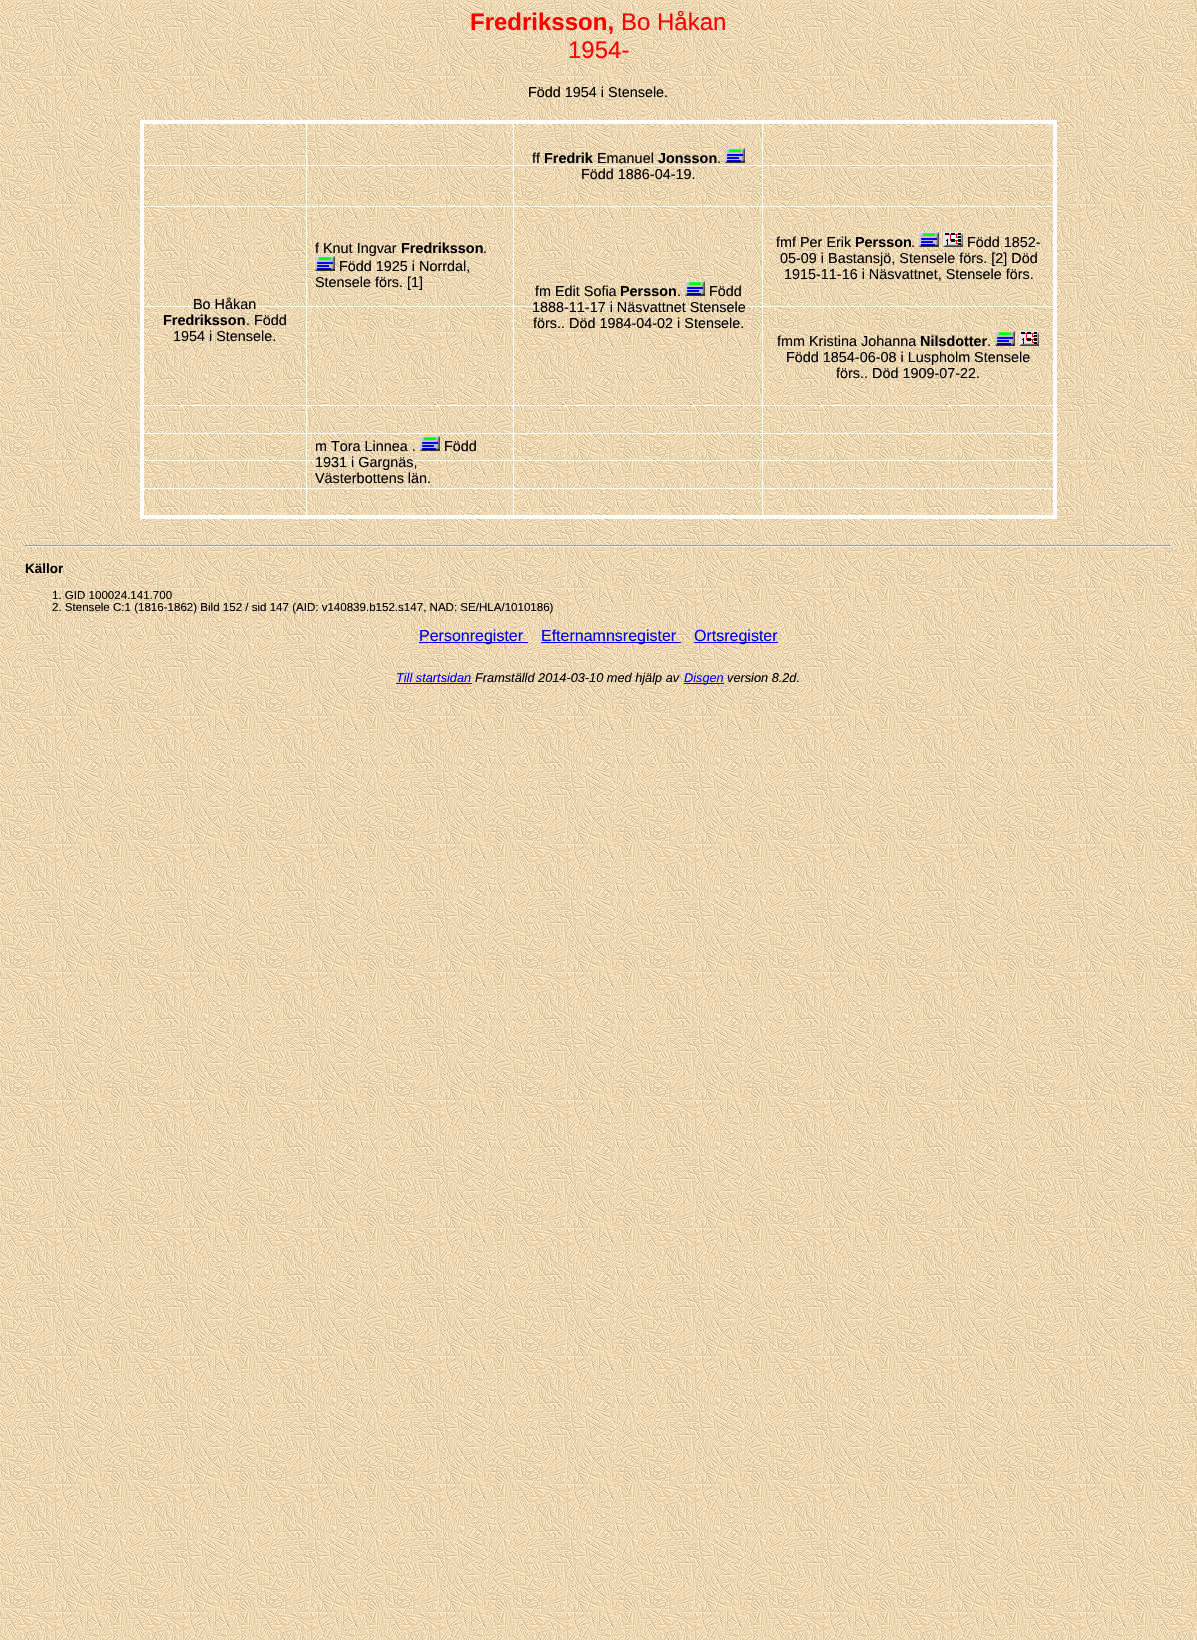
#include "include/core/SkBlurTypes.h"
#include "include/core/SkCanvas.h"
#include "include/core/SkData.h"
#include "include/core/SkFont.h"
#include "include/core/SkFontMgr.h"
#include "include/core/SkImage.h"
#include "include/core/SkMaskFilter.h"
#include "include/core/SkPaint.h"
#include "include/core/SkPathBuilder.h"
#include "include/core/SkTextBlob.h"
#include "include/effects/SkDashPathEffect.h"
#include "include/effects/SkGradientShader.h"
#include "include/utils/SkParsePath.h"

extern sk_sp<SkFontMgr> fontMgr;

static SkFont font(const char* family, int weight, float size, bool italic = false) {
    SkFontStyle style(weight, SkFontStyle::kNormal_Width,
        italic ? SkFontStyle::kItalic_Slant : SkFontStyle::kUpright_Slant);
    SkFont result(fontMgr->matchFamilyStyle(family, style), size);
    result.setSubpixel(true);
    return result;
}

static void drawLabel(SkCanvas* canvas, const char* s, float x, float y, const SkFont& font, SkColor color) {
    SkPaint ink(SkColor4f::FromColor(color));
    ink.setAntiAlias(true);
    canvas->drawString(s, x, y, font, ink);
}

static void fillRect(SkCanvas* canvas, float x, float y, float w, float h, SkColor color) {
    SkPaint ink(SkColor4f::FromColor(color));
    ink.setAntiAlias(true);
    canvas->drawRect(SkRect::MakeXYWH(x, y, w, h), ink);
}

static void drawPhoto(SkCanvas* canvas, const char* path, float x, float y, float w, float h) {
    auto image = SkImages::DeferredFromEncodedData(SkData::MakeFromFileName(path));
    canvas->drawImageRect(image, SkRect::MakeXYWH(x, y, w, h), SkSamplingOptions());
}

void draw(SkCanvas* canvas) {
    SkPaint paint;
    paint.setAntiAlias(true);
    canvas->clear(0xFFFFFFFF);
    drawPhoto(canvas, "assets/img1.png", 0, 0, 1197, 1640);
    SkFont font1 = font("Liberation Sans", 700, 24);
    drawLabel(canvas, "Fredriksson,", 470, 30, font1, 0xFFFF0000);
    SkFont font2 = font("Liberation Sans", 400, 24);
    drawLabel(canvas, "Bo Håkan", 621, 30, font2, 0xFFFF0000);
    drawLabel(canvas, "1954-", 568, 58, font2, 0xFFFF0000);
    SkFont font3 = font("Liberation Sans", 400, 14.4f);
    drawLabel(canvas, "Född 1954 i Stensele.", 528, 97, font3, 0xFF000000);
    fillRect(canvas, 141, 488, 915, 1, 0xFFFFFFFF);
    fillRect(canvas, 141, 460, 915, 1, 0xFFFFFFFF);
    fillRect(canvas, 141, 165, 915, 1, 0xFFFFFFFF);
    fillRect(canvas, 141, 206, 915, 1, 0xFFFFFFFF);
    fillRect(canvas, 141, 306, 915, 1, 0xFFFFFFFF);
    fillRect(canvas, 141, 433, 915, 1, 0xFFFFFFFF);
    fillRect(canvas, 141, 405, 915, 1, 0xFFFFFFFF);
    fillRect(canvas, 762, 122, 1, 396, 0xFFFFFFFF);
    fillRect(canvas, 513, 122, 1, 396, 0xFFFFFFFF);
    fillRect(canvas, 306, 122, 1, 396, 0xFFFFFFFF);
    fillRect(canvas, 140, 120, 917, 4, 0xFFFFFFFF);
    fillRect(canvas, 1053, 120, 4, 399, 0xFFFFFFFF);
    fillRect(canvas, 140, 515, 917, 4, 0xFFFFFFFF);
    fillRect(canvas, 140, 120, 4, 399, 0xFFFFFFFF);
    drawLabel(canvas, "ff", 532, 163, font3, 0xFF000000);
    SkFont font4 = font("Liberation Sans", 700, 14.4f);
    drawLabel(canvas, "Fredrik", 544, 163, font4, 0xFF000000);
    drawLabel(canvas, "Emanuel", 597, 163, font3, 0xFF000000);
    drawLabel(canvas, "Jonsson", 658, 163, font4, 0xFF000000);
    drawLabel(canvas, ".", 717, 163, font3, 0xFF000000);
    drawPhoto(canvas, "assets/img2.png", 725, 148, 20, 15);
    drawLabel(canvas, "Född 1886-04-19.", 581, 179, font3, 0xFF000000);
    drawLabel(canvas, "f Knut Ingvar", 315, 253, font3, 0xFF000000);
    drawLabel(canvas, "Fredriksson", 401, 253, font4, 0xFF000000);
    drawLabel(canvas, ".", 483, 253, font3, 0xFF000000);
    drawPhoto(canvas, "assets/img2.png", 315, 256, 20, 15);
    drawLabel(canvas, "Född 1925 i Norrdal,", 339, 271, font3, 0xFF000000);
    drawLabel(canvas, "Stensele förs. [1]", 315, 287, font3, 0xFF000000);
    drawLabel(canvas, "Bo Håkan", 193, 309, font3, 0xFF000000);
    drawLabel(canvas, "Fredriksson", 163, 325, font4, 0xFF000000);
    drawLabel(canvas, ". Född", 246, 325, font3, 0xFF000000);
    drawLabel(canvas, "1954 i Stensele.", 173, 341, font3, 0xFF000000);
    drawLabel(canvas, "fmf Per Erik", 776, 247, font3, 0xFF000000);
    drawLabel(canvas, "Persson", 855, 247, font4, 0xFF000000);
    drawLabel(canvas, ".", 911, 247, font3, 0xFF000000);
    drawPhoto(canvas, "assets/img2.png", 919, 232, 20, 15);
    drawPhoto(canvas, "assets/img3.png", 943, 232, 20, 15);
    drawLabel(canvas, "Född 1852-", 967, 247, font3, 0xFF000000);
    drawLabel(canvas, "05-09 i Bastansjö, Stensele förs. [2] Död", 780, 263, font3, 0xFF000000);
    drawLabel(canvas, "1915-11-16 i Näsvattnet, Stensele förs.", 784, 279, font3, 0xFF000000);
    drawLabel(canvas, "fm Edit Sofia", 535, 296, font3, 0xFF000000);
    drawLabel(canvas, "Persson", 620, 296, font4, 0xFF000000);
    drawLabel(canvas, ".", 677, 296, font3, 0xFF000000);
    drawPhoto(canvas, "assets/img2.png", 685, 281, 20, 15);
    drawLabel(canvas, "Född", 709, 296, font3, 0xFF000000);
    drawLabel(canvas, "1888-11-17 i Näsvattnet Stensele", 532, 312, font3, 0xFF000000);
    drawLabel(canvas, "förs.. Död 1984-04-02 i Stensele.", 533, 328, font3, 0xFF000000);
    drawLabel(canvas, "fmm Kristina Johanna", 777, 346, font3, 0xFF000000);
    drawLabel(canvas, "Nilsdotter", 920, 346, font4, 0xFF000000);
    drawLabel(canvas, ".", 987, 346, font3, 0xFF000000);
    drawPhoto(canvas, "assets/img2.png", 995, 331, 20, 15);
    drawPhoto(canvas, "assets/img3.png", 1019, 331, 20, 15);
    drawLabel(canvas, "Född 1854-06-08 i Luspholm Stensele", 786, 362, font3, 0xFF000000);
    drawLabel(canvas, "förs.. Död 1909-07-22.", 836, 378, font3, 0xFF000000);
    drawLabel(canvas, "m Tora Linnea .", 315, 451, font3, 0xFF000000);
    drawPhoto(canvas, "assets/img2.png", 420, 436, 20, 15);
    drawLabel(canvas, "Född", 444, 451, font3, 0xFF000000);
    drawLabel(canvas, "1931 i Gargnäs,", 315, 467, font3, 0xFF000000);
    drawLabel(canvas, "Västerbottens län.", 315, 483, font3, 0xFF000000);
    fillRect(canvas, 25, 545, 1147, 1, 0xFF9F9F9F);
    fillRect(canvas, 1171, 545, 1, 2, 0xFFEEEEEE);
    fillRect(canvas, 25, 546, 1147, 1, 0xFFEEEEEE);
    fillRect(canvas, 25, 545, 1, 2, 0xFF9F9F9F);
    SkFont font5 = font("Liberation Sans", 700, 13.5f);
    drawLabel(canvas, "Källor", 25, 573, font5, 0xFF000000);
    SkFont font6 = font("Liberation Sans", 400, 11.55f);
    drawLabel(canvas, "1. GID 100024.141.700", 52, 599, font6, 0xFF000000);
    drawLabel(canvas, "2. Stensele C:1 (1816-1862) Bild 152 / sid 147 (AID: v140839.b152.s147, NAD: SE/HLA/1010186)", 52, 611, font6, 0xFF000000);
    fillRect(canvas, 419, 642, 109, 1, 0xFF0000EE);
    SkFont font7 = font("Liberation Sans", 400, 16);
    drawLabel(canvas, "Personregister", 419, 641, font7, 0xFF0000EE);
    fillRect(canvas, 541, 642, 140, 1, 0xFF0000EE);
    drawLabel(canvas, "Efternamnsregister", 541, 641, font7, 0xFF0000EE);
    fillRect(canvas, 694, 642, 84, 1, 0xFF0000EE);
    drawLabel(canvas, "Ortsregister", 694, 641, font7, 0xFF0000EE);
    SkFont font8 = font("Liberation Sans", 400, 12.75f, true);
    drawLabel(canvas, "Till startsidan", 396, 682, font8, 0xFF0000EE);
    fillRect(canvas, 396, 683, 76, 1, 0xFF0000EE);
    drawLabel(canvas, "Framställd 2014-03-10 med hjälp av", 475, 682, font8, 0xFF000000);
    fillRect(canvas, 684, 683, 40, 1, 0xFF0000EE);
    drawLabel(canvas, "Disgen", 684, 682, font8, 0xFF0000EE);
    drawLabel(canvas, "version 8.2d.", 727, 682, font8, 0xFF000000);
}
